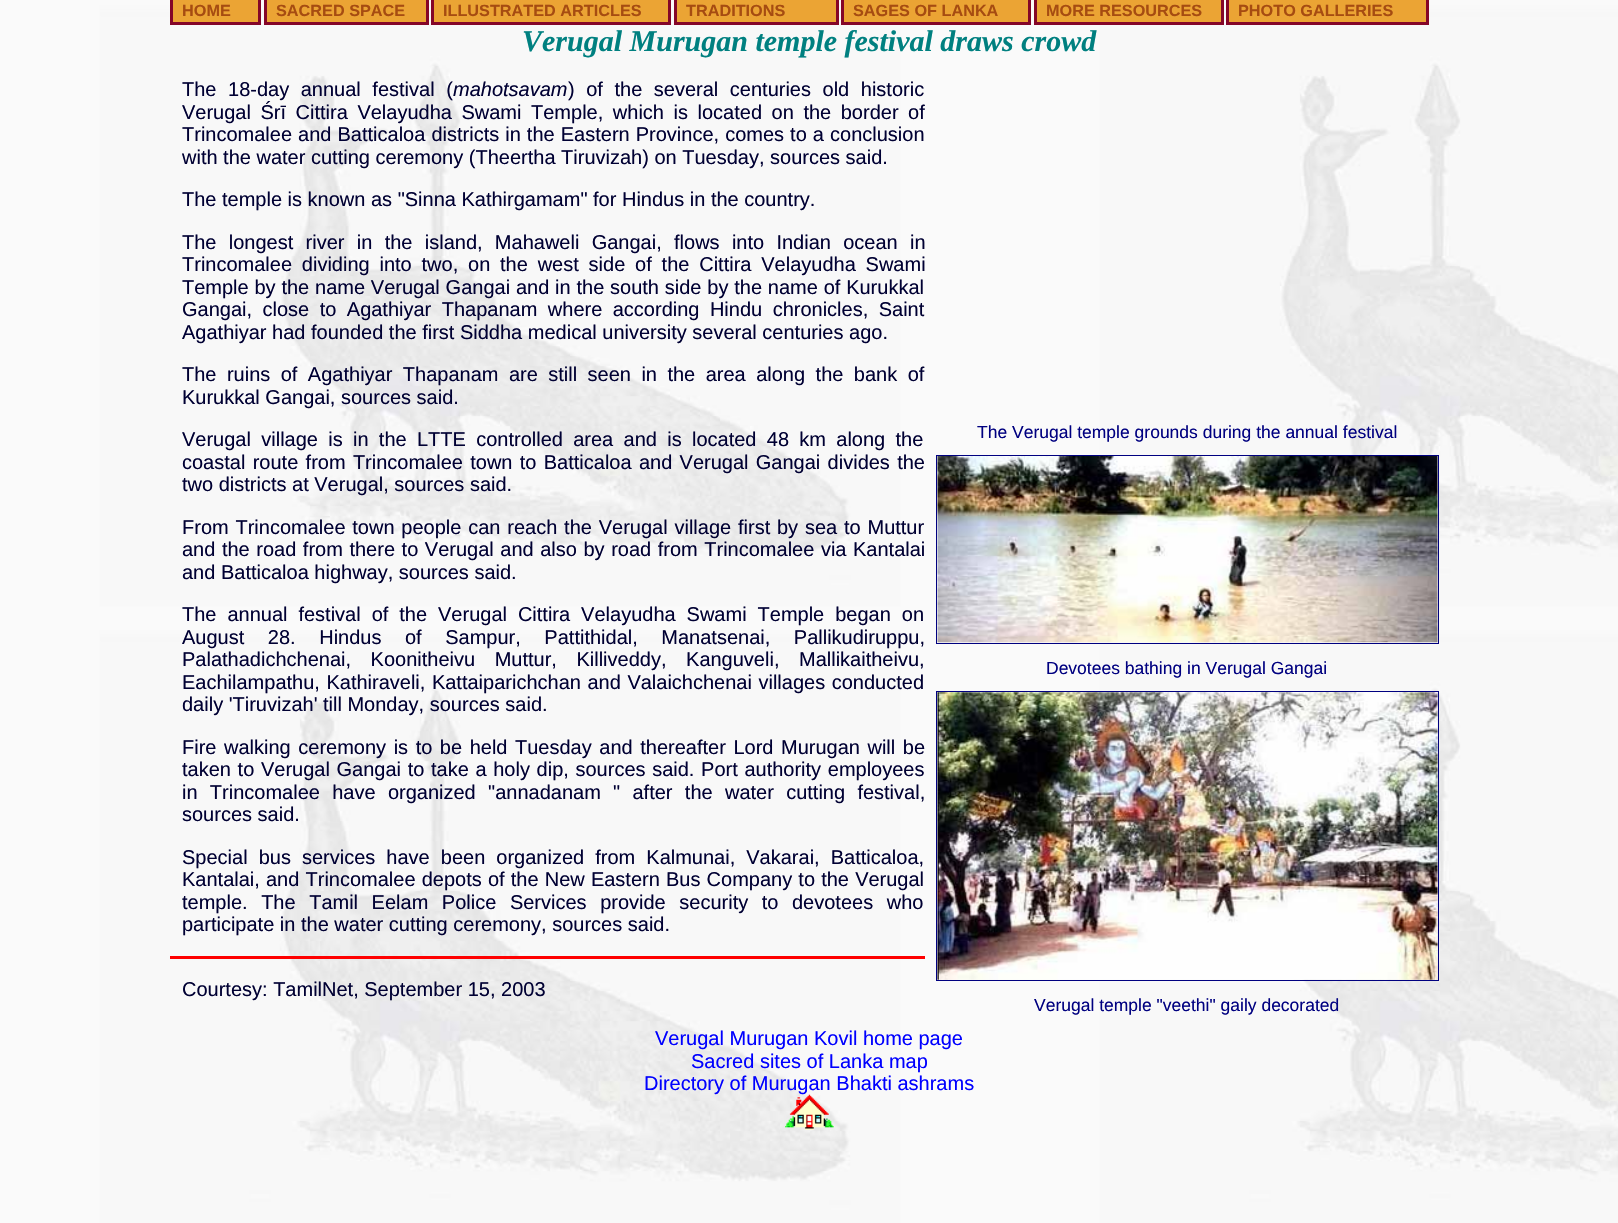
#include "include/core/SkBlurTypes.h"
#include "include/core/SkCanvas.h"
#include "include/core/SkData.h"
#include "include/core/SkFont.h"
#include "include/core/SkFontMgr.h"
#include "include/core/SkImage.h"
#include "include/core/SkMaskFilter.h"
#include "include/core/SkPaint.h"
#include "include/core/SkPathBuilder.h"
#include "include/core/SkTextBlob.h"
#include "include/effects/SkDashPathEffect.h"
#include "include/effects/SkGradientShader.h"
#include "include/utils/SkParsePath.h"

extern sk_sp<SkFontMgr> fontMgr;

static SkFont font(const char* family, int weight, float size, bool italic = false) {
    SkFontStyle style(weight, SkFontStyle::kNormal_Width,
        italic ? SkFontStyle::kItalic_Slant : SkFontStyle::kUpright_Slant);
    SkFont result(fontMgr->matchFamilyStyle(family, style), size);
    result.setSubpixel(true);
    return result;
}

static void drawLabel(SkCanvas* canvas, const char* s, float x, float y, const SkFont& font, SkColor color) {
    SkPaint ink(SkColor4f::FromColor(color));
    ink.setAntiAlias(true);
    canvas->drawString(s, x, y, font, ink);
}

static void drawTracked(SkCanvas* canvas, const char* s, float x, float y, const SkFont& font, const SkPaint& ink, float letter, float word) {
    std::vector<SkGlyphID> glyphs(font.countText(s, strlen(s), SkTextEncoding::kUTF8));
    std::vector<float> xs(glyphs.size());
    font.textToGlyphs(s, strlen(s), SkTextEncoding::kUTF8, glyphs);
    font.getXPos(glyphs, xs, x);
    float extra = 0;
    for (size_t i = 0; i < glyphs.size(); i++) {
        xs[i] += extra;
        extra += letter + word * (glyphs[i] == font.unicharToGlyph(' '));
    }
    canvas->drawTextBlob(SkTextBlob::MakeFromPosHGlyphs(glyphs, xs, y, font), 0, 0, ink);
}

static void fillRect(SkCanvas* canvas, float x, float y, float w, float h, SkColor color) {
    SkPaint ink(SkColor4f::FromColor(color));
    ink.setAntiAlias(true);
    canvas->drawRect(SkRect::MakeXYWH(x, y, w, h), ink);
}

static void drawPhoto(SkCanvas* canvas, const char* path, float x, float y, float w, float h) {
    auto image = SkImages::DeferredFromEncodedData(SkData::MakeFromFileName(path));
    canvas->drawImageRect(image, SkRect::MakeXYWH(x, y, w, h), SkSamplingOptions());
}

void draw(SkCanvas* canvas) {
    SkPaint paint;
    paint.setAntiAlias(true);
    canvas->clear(0xFFFFFFFF);
    drawPhoto(canvas, "assets/img1.png", 0, 0, 1618, 1223);
    paint.setColor(0xFFEBA434);
    canvas->drawRect(SkRect::MakeXYWH(171.5f, -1.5f, 88, 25), paint);
    paint.setStroke(true);
    paint.setStrokeWidth(3);
    paint.setColor(0xFF840628);
    canvas->drawRect(SkRect::MakeXYWH(171.5f, -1.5f, 88, 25), paint);
    SkFont font1 = font("Liberation Sans", 700, 16.25f);
    drawLabel(canvas, "HOME", 182, 16, font1, 0xFFA64C11);
    paint.setStroke(false);
    paint.setColor(0xFFEBA434);
    canvas->drawRect(SkRect::MakeXYWH(265.5f, -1.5f, 162, 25), paint);
    paint.setStroke(true);
    paint.setColor(0xFF840628);
    canvas->drawRect(SkRect::MakeXYWH(265.5f, -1.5f, 162, 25), paint);
    drawLabel(canvas, "SACRED SPACE", 276, 16, font1, 0xFFA64C11);
    paint.setStroke(false);
    paint.setColor(0xFFEBA434);
    canvas->drawRect(SkRect::MakeXYWH(432.5f, -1.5f, 237, 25), paint);
    paint.setStroke(true);
    paint.setColor(0xFF840628);
    canvas->drawRect(SkRect::MakeXYWH(432.5f, -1.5f, 237, 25), paint);
    drawLabel(canvas, "ILLUSTRATED ARTICLES", 443, 16, font1, 0xFFA64C11);
    paint.setStroke(false);
    paint.setColor(0xFFEBA434);
    canvas->drawRect(SkRect::MakeXYWH(675.5f, -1.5f, 162, 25), paint);
    paint.setStroke(true);
    paint.setColor(0xFF840628);
    canvas->drawRect(SkRect::MakeXYWH(675.5f, -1.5f, 162, 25), paint);
    drawLabel(canvas, "TRADITIONS", 686, 16, font1, 0xFFA64C11);
    paint.setStroke(false);
    paint.setColor(0xFFEBA434);
    canvas->drawRect(SkRect::MakeXYWH(842.5f, -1.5f, 187, 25), paint);
    paint.setStroke(true);
    paint.setColor(0xFF840628);
    canvas->drawRect(SkRect::MakeXYWH(842.5f, -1.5f, 187, 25), paint);
    drawLabel(canvas, "SAGES OF LANKA", 853, 16, font1, 0xFFA64C11);
    paint.setStroke(false);
    paint.setColor(0xFFEBA434);
    canvas->drawRect(SkRect::MakeXYWH(1035.5f, -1.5f, 187, 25), paint);
    paint.setStroke(true);
    paint.setColor(0xFF840628);
    canvas->drawRect(SkRect::MakeXYWH(1035.5f, -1.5f, 187, 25), paint);
    drawLabel(canvas, "MORE RESOURCES", 1046, 16, font1, 0xFFA64C11);
    paint.setStroke(false);
    paint.setColor(0xFFEBA434);
    canvas->drawRect(SkRect::MakeXYWH(1227.5f, -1.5f, 200, 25), paint);
    paint.setStroke(true);
    paint.setColor(0xFF840628);
    canvas->drawRect(SkRect::MakeXYWH(1227.5f, -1.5f, 200, 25), paint);
    drawLabel(canvas, "PHOTO GALLERIES", 1238, 16, font1, 0xFFA64C11);
    SkFont font2 = font("Liberation Serif", 700, 30, true);
    drawLabel(canvas, "Verugal Murugan temple festival draws crowd", 522, 51, font2, 0xFF008080);
    SkFont font3 = font("Liberation Sans", 400, 20);
    paint.setStroke(false);
    paint.setColor(0xFF000033);
    drawTracked(canvas, "The 18-day annual festival (", 182, 96, font3, paint, 0, 6);
    SkFont font4 = font("Liberation Sans", 400, 20, true);
    drawLabel(canvas, "mahotsavam", 453, 96, font4, 0xFF000033);
    drawTracked(canvas, ") of the several centuries old historic", 568, 96, font3, paint, 0, 6);
    drawTracked(canvas, "Verugal Śrī Cittira Velayudha Swami Temple, which is located on the border of", 182, 119, font3, paint, 0, 4);
    drawTracked(canvas, "Trincomalee and Batticaloa districts in the Eastern Province, comes to a conclusion", 182, 141, font3, paint, 0, 0.5f);
    drawLabel(canvas, "with the water cutting ceremony (Theertha Tiruvizah) on Tuesday, sources said.", 182, 164, font3, 0xFF000033);
    drawLabel(canvas, "The temple is known as \"Sinna Kathirgamam\" for Hindus in the country.", 182, 206, font3, 0xFF000033);
    drawTracked(canvas, "The longest river in the island, Mahaweli Gangai, flows into Indian ocean in", 182, 249, font3, paint, 0, 6.75f);
    drawTracked(canvas, "Trincomalee dividing into two, on the west side of the Cittira Velayudha Swami", 182, 271, font3, paint, 0, 4.25f);
    drawTracked(canvas, "Temple by the name Verugal Gangai and in the south side by the name of Kurukkal", 182, 294, font3, paint, 0, 0.25f);
    drawTracked(canvas, "Gangai, close to Agathiyar Thapanam where according Hindu chronicles, Saint", 182, 316, font3, paint, 0, 4.9f);
    drawLabel(canvas, "Agathiyar had founded the first Siddha medical university several centuries ago.", 182, 339, font3, 0xFF000033);
    drawTracked(canvas, "The ruins of Agathiyar Thapanam are still seen in the area along the bank of", 182, 381, font3, paint, 0, 4.9f);
    drawLabel(canvas, "Kurukkal Gangai, sources said.", 182, 404, font3, 0xFF000033);
    drawTracked(canvas, "Verugal village is in the LTTE controlled area and is located 48 km along the", 182, 446, font3, paint, 0, 4.75f);
    drawTracked(canvas, "coastal route from Trincomalee town to Batticaloa and Verugal Gangai divides the", 182, 469, font3, paint, 0, 1.75f);
    drawLabel(canvas, "two districts at Verugal, sources said.", 182, 491, font3, 0xFF000033);
    SkFont font5 = font("Liberation Sans", 400, 17.5f);
    drawLabel(canvas, "The Verugal temple grounds during the annual festival", 977, 438, font5, 0xFF000080);
    paint.setStroke(true);
    paint.setStrokeWidth(1);
    paint.setColor(0xFF000080);
    canvas->drawRect(SkRect::MakeXYWH(936.5f, 455.5f, 502, 188), paint);
    drawPhoto(canvas, "assets/img2.png", 937, 456, 501, 187);
    drawLabel(canvas, "Devotees bathing in Verugal Gangai", 1046, 674, font5, 0xFF000080);
    canvas->drawRect(SkRect::MakeXYWH(936.5f, 691.5f, 502, 289), paint);
    drawPhoto(canvas, "assets/img3.png", 937, 692, 501, 288);
    drawLabel(canvas, "Verugal temple \"veethi\" gaily decorated", 1034, 1011, font5, 0xFF000080);
    paint.setStroke(false);
    paint.setColor(0xFF000033);
    drawTracked(canvas, "From Trincomalee town people can reach the Verugal village first by sea to Muttur", 182, 534, font3, paint, 0, 1.25f);
    drawTracked(canvas, "and the road from there to Verugal and also by road from Trincomalee via Kantalai", 182, 556, font3, paint, 0, 1);
    drawLabel(canvas, "and Batticaloa highway, sources said.", 182, 579, font3, 0xFF000033);
    drawTracked(canvas, "The annual festival of the Verugal Cittira Velayudha Swami Temple began on", 182, 621, font3, paint, 0, 5.4f);
    drawTracked(canvas, "August 28. Hindus of Sampur, Pattithidal, Manatsenai, Pallikudiruppu,", 182, 644, font3, paint, 0, 18);
    drawTracked(canvas, "Palathadichchenai, Koonitheivu Muttur, Killiveddy, Kanguveli, Mallikaitheivu,", 182, 666, font3, paint, 0, 14);
    drawTracked(canvas, "Eachilampathu, Kathiraveli, Kattaiparichchan and Valaichchenai villages conducted", 182, 689, font3, paint, 0, 1);
    drawLabel(canvas, "daily 'Tiruvizah' till Monday, sources said.", 182, 711, font3, 0xFF000033);
    drawTracked(canvas, "Fire walking ceremony is to be held Tuesday and thereafter Lord Murugan will be", 182, 754, font3, paint, 0, 2);
    drawTracked(canvas, "taken to Verugal Gangai to take a holy dip, sources said. Port authority employees", 182, 776, font3, paint, 0, 1.1f);
    drawTracked(canvas, "in Trincomalee have organized \"annadanam \" after the water cutting festival,", 182, 799, font3, paint, 0, 6.75f);
    drawLabel(canvas, "sources said.", 182, 821, font3, 0xFF000033);
    drawTracked(canvas, "Special bus services have been organized from Kalmunai, Vakarai, Batticaloa,", 182, 864, font3, paint, 0, 5.5f);
    drawTracked(canvas, "Kantalai, and Trincomalee depots of the New Eastern Bus Company to the Verugal", 182, 886, font3, paint, 0, 0.6f);
    drawTracked(canvas, "temple. The Tamil Eelam Police Services provide security to devotees who", 182, 909, font3, paint, 0, 8);
    drawLabel(canvas, "participate in the water cutting ceremony, sources said.", 182, 931, font3, 0xFF000033);
    fillRect(canvas, 170, 956, 755, 3, 0xFFFF0000);
    drawLabel(canvas, "Courtesy: TamilNet, September 15, 2003", 182, 996, font3, 0xFF000033);
    drawLabel(canvas, "Verugal Murugan Kovil home page", 655, 1045, font3, 0xFF0000FF);
    drawLabel(canvas, "Sacred sites of Lanka map", 691, 1068, font3, 0xFF0000FF);
    drawLabel(canvas, "Directory of Murugan Bhakti ashrams", 644, 1090, font3, 0xFF0000FF);
    drawPhoto(canvas, "assets/img4.png", 785, 1094, 49, 36);
}
